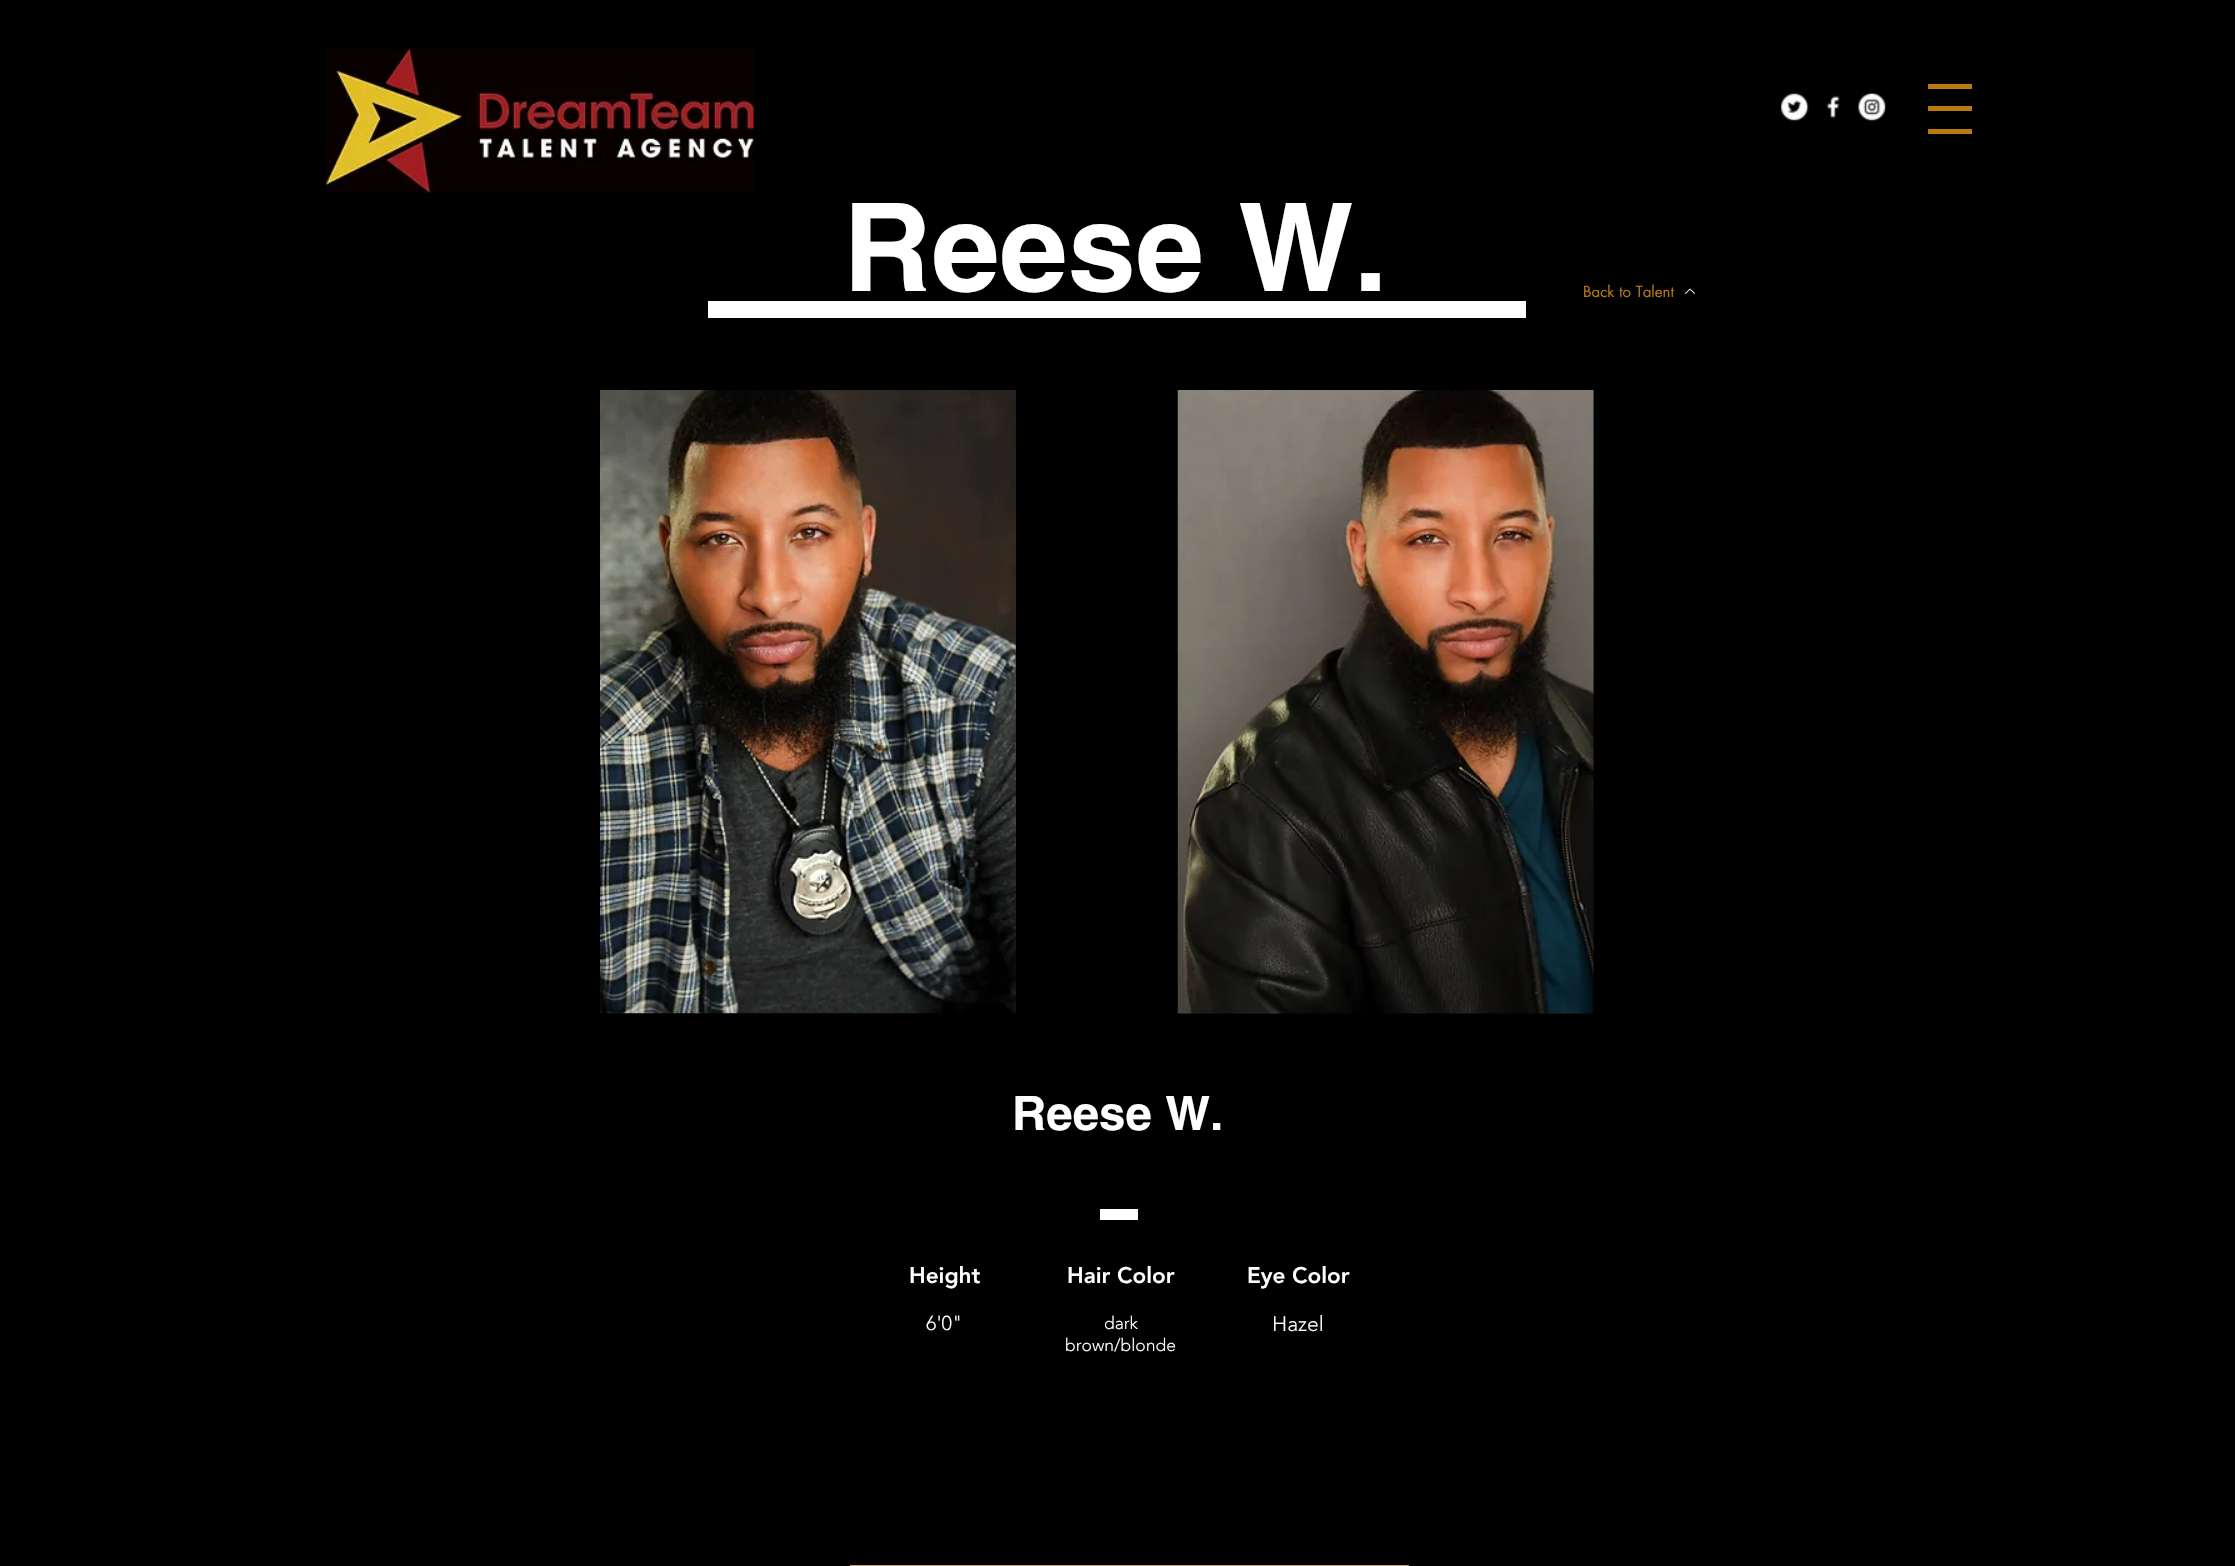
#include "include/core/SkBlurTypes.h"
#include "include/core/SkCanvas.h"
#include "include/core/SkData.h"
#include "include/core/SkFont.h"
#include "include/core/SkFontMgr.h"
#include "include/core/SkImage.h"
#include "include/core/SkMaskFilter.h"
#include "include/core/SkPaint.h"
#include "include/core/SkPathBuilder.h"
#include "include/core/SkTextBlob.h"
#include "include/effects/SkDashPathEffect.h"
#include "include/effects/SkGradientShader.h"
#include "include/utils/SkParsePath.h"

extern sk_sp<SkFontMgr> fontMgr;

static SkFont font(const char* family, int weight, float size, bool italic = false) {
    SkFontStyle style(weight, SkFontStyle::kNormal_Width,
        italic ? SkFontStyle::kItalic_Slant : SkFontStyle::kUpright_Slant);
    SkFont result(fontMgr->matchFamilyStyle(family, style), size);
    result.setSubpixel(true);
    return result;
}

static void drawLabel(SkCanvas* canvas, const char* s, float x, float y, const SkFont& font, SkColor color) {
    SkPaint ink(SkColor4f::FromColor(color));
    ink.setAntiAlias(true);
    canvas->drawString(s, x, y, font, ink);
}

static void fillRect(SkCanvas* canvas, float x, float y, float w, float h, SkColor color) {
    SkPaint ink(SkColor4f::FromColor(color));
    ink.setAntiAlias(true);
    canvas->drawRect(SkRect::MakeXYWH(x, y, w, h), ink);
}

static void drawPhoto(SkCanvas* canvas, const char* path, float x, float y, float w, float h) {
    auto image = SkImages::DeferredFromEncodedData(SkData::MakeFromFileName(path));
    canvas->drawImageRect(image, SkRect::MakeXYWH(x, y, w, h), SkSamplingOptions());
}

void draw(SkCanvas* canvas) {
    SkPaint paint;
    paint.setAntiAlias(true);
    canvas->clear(0xFF000000);
    drawPhoto(canvas, "assets/img1.png", 326, 48, 428, 145);
    drawPhoto(canvas, "assets/img2.png", 1781, 93, 28, 28);
    drawPhoto(canvas, "assets/img3.png", 1827, 95, 13, 23);
    drawPhoto(canvas, "assets/img4.png", 1858, 93, 28, 28);
    fillRect(canvas, 1928, 84, 44, 5, 0xFFB87A0F);
    fillRect(canvas, 1928, 106, 44, 5, 0xFFB87A0F);
    fillRect(canvas, 1928, 129, 44, 5, 0xFFB87A0F);
    SkFont font1 = font("helvetica", 700, 122.5f);
    drawLabel(canvas, "Reese W.", 843, 291, font1, 0xFFFFFFFF);
    SkFont font2 = font("futura", 400, 15);
    drawLabel(canvas, "Back to Talent", 1583, 297, font2, 0xFFB87A0F);
    drawPhoto(canvas, "assets/img5.png", 1685, 288, 10, 6);
    fillRect(canvas, 708, 301, 818, 17, 0xFFFFFFFF);
    drawPhoto(canvas, "assets/img6.png", 600, 390, 416, 624);
    drawPhoto(canvas, "assets/img7.png", 1177, 390, 417, 624);
    SkFont font3 = font("helvetica", 700, 47.5f);
    drawLabel(canvas, "Reese W.", 1012, 1130, font3, 0xFFFFFFFF);
    fillRect(canvas, 1100, 1209, 38, 11, 0xFFFFFFFF);
    SkFont font4 = font("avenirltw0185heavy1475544", 900, 22.5f);
    drawLabel(canvas, "Height", 909, 1283, font4, 0xFFFFFFFF);
    drawLabel(canvas, "Hair Color", 1067, 1283, font4, 0xFFFFFFFF);
    drawLabel(canvas, "Eye Color", 1247, 1283, font4, 0xFFFFFFFF);
    SkFont font5 = font("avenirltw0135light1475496", 300, 20);
    drawLabel(canvas, "6'0\"", 926, 1330, font5, 0xFFFFFFFF);
    SkFont font6 = font("avenirltw0135light1475496", 300, 17.5f);
    drawLabel(canvas, "dark", 1104, 1329, font6, 0xFFFFFFFF);
    drawLabel(canvas, "brown/blonde", 1065, 1351, font6, 0xFFFFFFFF);
    SkFont font7 = font("avenirltw0135light1475496", 300, 21);
    drawLabel(canvas, "Hazel", 1272, 1331, font7, 0xFFFFFFFF);
    fillRect(canvas, 850, 1565, 559, 1, 0xFFB87A0F);
    drawPhoto(canvas, "assets/img8.png", 850, 1565, 559, 1);
}
